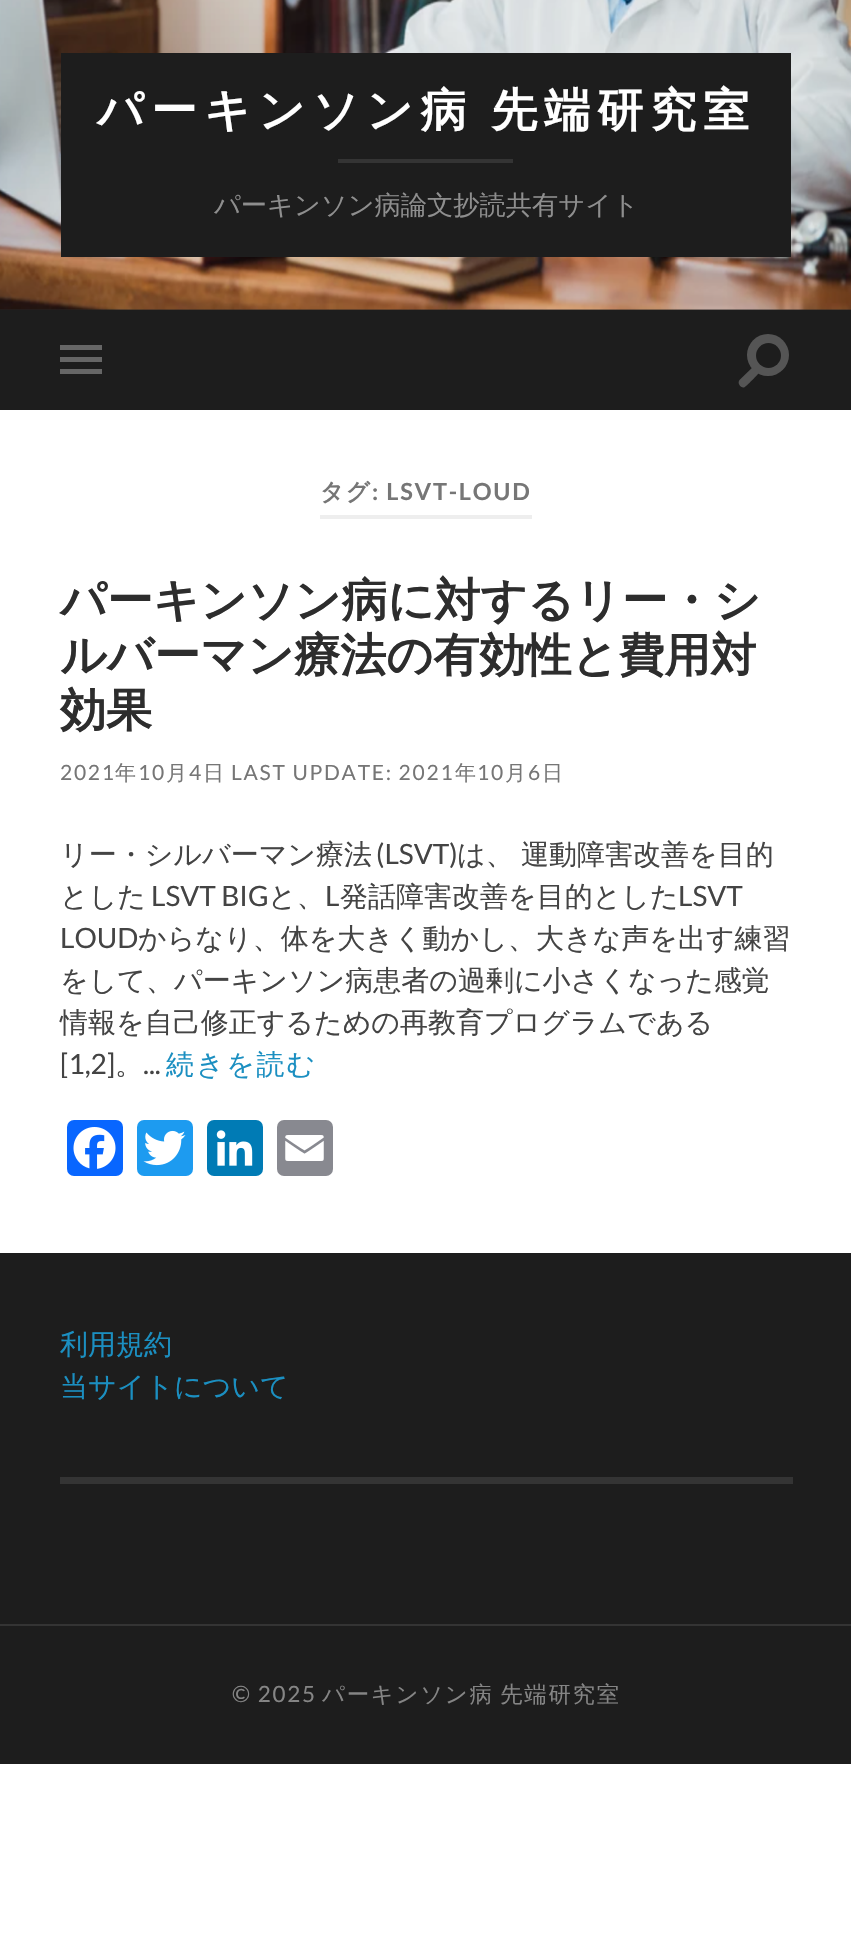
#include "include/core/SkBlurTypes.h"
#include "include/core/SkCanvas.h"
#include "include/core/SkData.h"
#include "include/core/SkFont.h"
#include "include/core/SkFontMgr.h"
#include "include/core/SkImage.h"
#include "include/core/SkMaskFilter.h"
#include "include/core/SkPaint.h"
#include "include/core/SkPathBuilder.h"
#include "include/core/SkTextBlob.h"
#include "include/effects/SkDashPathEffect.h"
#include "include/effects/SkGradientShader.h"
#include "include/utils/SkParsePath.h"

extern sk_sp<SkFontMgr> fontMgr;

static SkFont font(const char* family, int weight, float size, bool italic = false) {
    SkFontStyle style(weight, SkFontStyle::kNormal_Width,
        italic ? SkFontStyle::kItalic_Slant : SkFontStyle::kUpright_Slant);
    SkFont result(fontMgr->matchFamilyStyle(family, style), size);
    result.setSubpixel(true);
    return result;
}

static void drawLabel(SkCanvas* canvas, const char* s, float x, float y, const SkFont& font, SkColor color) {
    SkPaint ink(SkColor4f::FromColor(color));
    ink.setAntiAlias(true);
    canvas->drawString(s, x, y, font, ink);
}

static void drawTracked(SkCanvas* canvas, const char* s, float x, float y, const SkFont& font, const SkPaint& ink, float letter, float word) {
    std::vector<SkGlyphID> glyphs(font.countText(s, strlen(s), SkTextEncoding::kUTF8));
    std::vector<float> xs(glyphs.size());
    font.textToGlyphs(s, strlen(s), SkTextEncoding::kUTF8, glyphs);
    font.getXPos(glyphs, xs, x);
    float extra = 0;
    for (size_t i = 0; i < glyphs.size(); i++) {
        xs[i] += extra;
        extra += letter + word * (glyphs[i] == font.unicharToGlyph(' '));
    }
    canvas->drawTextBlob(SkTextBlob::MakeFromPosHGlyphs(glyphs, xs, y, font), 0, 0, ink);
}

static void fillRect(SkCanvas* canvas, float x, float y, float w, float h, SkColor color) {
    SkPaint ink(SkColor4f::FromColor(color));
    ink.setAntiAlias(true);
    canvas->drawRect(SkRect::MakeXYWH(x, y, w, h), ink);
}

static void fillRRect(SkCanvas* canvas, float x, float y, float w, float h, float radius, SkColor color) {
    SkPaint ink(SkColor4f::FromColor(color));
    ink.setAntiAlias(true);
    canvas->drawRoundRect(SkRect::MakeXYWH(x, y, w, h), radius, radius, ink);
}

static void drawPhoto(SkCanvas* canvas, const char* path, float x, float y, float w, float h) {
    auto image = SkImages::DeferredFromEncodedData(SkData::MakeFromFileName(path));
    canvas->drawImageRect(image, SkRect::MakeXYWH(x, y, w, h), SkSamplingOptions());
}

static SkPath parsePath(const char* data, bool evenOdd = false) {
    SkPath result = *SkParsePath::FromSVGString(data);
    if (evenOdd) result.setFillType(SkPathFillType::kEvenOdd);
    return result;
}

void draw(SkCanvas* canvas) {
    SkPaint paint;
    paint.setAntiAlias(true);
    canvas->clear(0xFFFFFFFF);
    fillRect(canvas, 0, 309, 851, 1, 0xFF262626);
    drawPhoto(canvas, "assets/img1.png", 0, 0, 851, 310);
    fillRect(canvas, 61, 53, 730, 204, 0xFF1D1D1D);
    SkFont font1 = font("WenQuanYi Zen Hei", 700, 46);
    paint.setColor(0xFFFFFFFF);
    drawTracked(canvas, "パーキンソン病 先端研究室", 97, 126, font1, paint, 7, -3);
    fillRect(canvas, 338, 159, 175, 4, 0xFF343434);
    SkFont font2 = font("WenQuanYi Zen Hei", 500, 26.25f);
    drawLabel(canvas, "パーキンソン病論文抄読共有サイト", 214, 214, font2, 0xFF8E8E8E);
    fillRect(canvas, 0, 310, 851, 100, 0xFF1D1D1D);
    fillRect(canvas, 60, 345, 42, 5, 0xFF666666);
    fillRect(canvas, 60, 357, 42, 5, 0xFF666666);
    fillRect(canvas, 60, 369, 42, 5, 0xFF666666);
    paint.setColor(0xFF555555);
    canvas->drawCircle(768, 355, 21, paint);
    paint.setColor(0xFF1D1D1D);
    canvas->drawCircle(768.5f, 355.5f, 12.5f, paint);
    paint.setColor(0xFF555555);
    canvas->drawPath(parsePath("M739.5 380L754.5 365.5L760.5 371.5C758 374 746 387 744 387.5C740.5 388 737 383 739.5 380Z"), paint);
    fillRect(canvas, 320, 515, 212, 4, 0xFFEEEEEE);
    SkFont font3 = font("WenQuanYi Zen Hei", 700, 23.5f);
    paint.setColor(0xFF767676);
    drawTracked(canvas, "タグ", 320, 500, font3, paint, 1.75f, 0);
    SkFont font4 = font("Lato", 700, 23.5f);
    drawTracked(canvas, ": LSVT-LOUD", 372, 500, font4, paint, 1.75f, 0);
    drawLabel(canvas, "パーキンソン病に対するリー・シ", 60, 616, font1, 0xFF2D2D2D);
    drawLabel(canvas, "ルバーマン療法の有効性と費用対", 60, 671, font1, 0xFF2D2D2D);
    drawLabel(canvas, "効果", 60, 726, font1, 0xFF2D2D2D);
    SkFont font5 = font("Lato", 400, 21);
    drawTracked(canvas, "2021", 60, 780, font5, paint, 1.75f, 0);
    SkFont font6 = font("WenQuanYi Zen Hei", 500, 21);
    drawTracked(canvas, "年", 115, 780, font6, paint, 1.75f, 0);
    drawTracked(canvas, "10", 138, 780, font5, paint, 1.75f, 0);
    drawTracked(canvas, "月", 166, 780, font6, paint, 1.75f, 0);
    drawTracked(canvas, "4", 189, 780, font5, paint, 1.75f, 0);
    drawTracked(canvas, "日", 203, 780, font6, paint, 1.75f, 0);
    drawTracked(canvas, "LAST UPDATE: 2021", 231, 780, font5, paint, 1.75f, 0);
    drawTracked(canvas, "年", 455, 780, font6, paint, 1.75f, 0);
    drawTracked(canvas, "10", 477, 780, font5, paint, 1.75f, 0);
    drawTracked(canvas, "月", 505, 780, font6, paint, 1.75f, 0);
    drawTracked(canvas, "6", 528, 780, font5, paint, 1.75f, 0);
    drawTracked(canvas, "日", 542, 780, font6, paint, 1.75f, 0);
    SkFont font7 = font("WenQuanYi Zen Hei", 500, 28);
    drawLabel(canvas, "リー・シルバーマン療法", 60, 864, font7, 0xFF444444);
    SkFont font8 = font("Lato", 400, 28);
    drawLabel(canvas, "(LSVT)", 376, 864, font8, 0xFF444444);
    paint.setColor(0xFF444444);
    drawTracked(canvas, "は、 運動障害改善を目的", 457, 864, font7, paint, 0, -1);
    drawLabel(canvas, "とした", 60, 906, font7, 0xFF444444);
    drawLabel(canvas, "LSVT BIG", 151, 906, font8, 0xFF444444);
    drawLabel(canvas, "と、", 268, 906, font7, 0xFF444444);
    drawLabel(canvas, "L", 325, 906, font8, 0xFF444444);
    drawLabel(canvas, "発話障害改善を目的とした", 340, 906, font7, 0xFF444444);
    drawLabel(canvas, "LSVT", 678, 906, font8, 0xFF444444);
    drawLabel(canvas, "LOUD", 60, 948, font8, 0xFF444444);
    drawLabel(canvas, "からなり、体を大きく動かし、大きな声を出す練習", 138, 948, font7, 0xFF444444);
    drawLabel(canvas, "をして、パーキンソン病患者の過剰に小さくなった感覚", 60, 990, font7, 0xFF444444);
    drawLabel(canvas, "情報を自己修正するための再教育プログラムである", 60, 1032, font7, 0xFF444444);
    drawLabel(canvas, "[1,2]", 60, 1074, font8, 0xFF444444);
    drawLabel(canvas, "。", 115, 1074, font7, 0xFF444444);
    drawLabel(canvas, "...", 143, 1074, font8, 0xFF444444);
    paint.setColor(0xFF1B8FC1);
    drawTracked(canvas, "続きを読む", 166, 1074, font7, paint, 1.75f, 0);
    fillRRect(canvas, 67, 1120, 56, 56, 7, 0xFF0866FF);
    drawPhoto(canvas, "assets/img2.png", 73, 1127, 43, 42);
    fillRRect(canvas, 137, 1120, 56, 56, 7, 0xFF1D9BF0);
    drawPhoto(canvas, "assets/img3.png", 143, 1130, 43, 36);
    fillRRect(canvas, 207, 1120, 56, 56, 7, 0xFF007BB5);
    drawPhoto(canvas, "assets/img4.png", 216, 1130, 37, 36);
    fillRRect(canvas, 277, 1120, 56, 56, 7, 0xFF888990);
    drawPhoto(canvas, "assets/img5.png", 285, 1135, 39, 26);
    fillRect(canvas, 0, 1253, 851, 371, 0xFF1D1D1D);
    drawLabel(canvas, "利用規約", 60, 1354, font7, 0xFF1B8FC1);
    drawLabel(canvas, "当サイトについて", 60, 1396, font7, 0xFF1B8FC1);
    fillRect(canvas, 60, 1477, 733, 7, 0xFF343434);
    fillRect(canvas, 0, 1626, 851, 138, 0xFF1D1D1D);
    fillRect(canvas, 0, 1624, 851, 2, 0xFF343434);
    SkFont font9 = font("Lato", 400, 22.4f);
    paint.setColor(0xFF858585);
    drawTracked(canvas, "© 2025", 232, 1702, font9, paint, 1.75f, 0);
    SkFont font10 = font("WenQuanYi Zen Hei", 500, 22.4f);
    drawTracked(canvas, "パーキンソン病 先端研究室", 322, 1702, font10, paint, 1.75f, -2);
}
